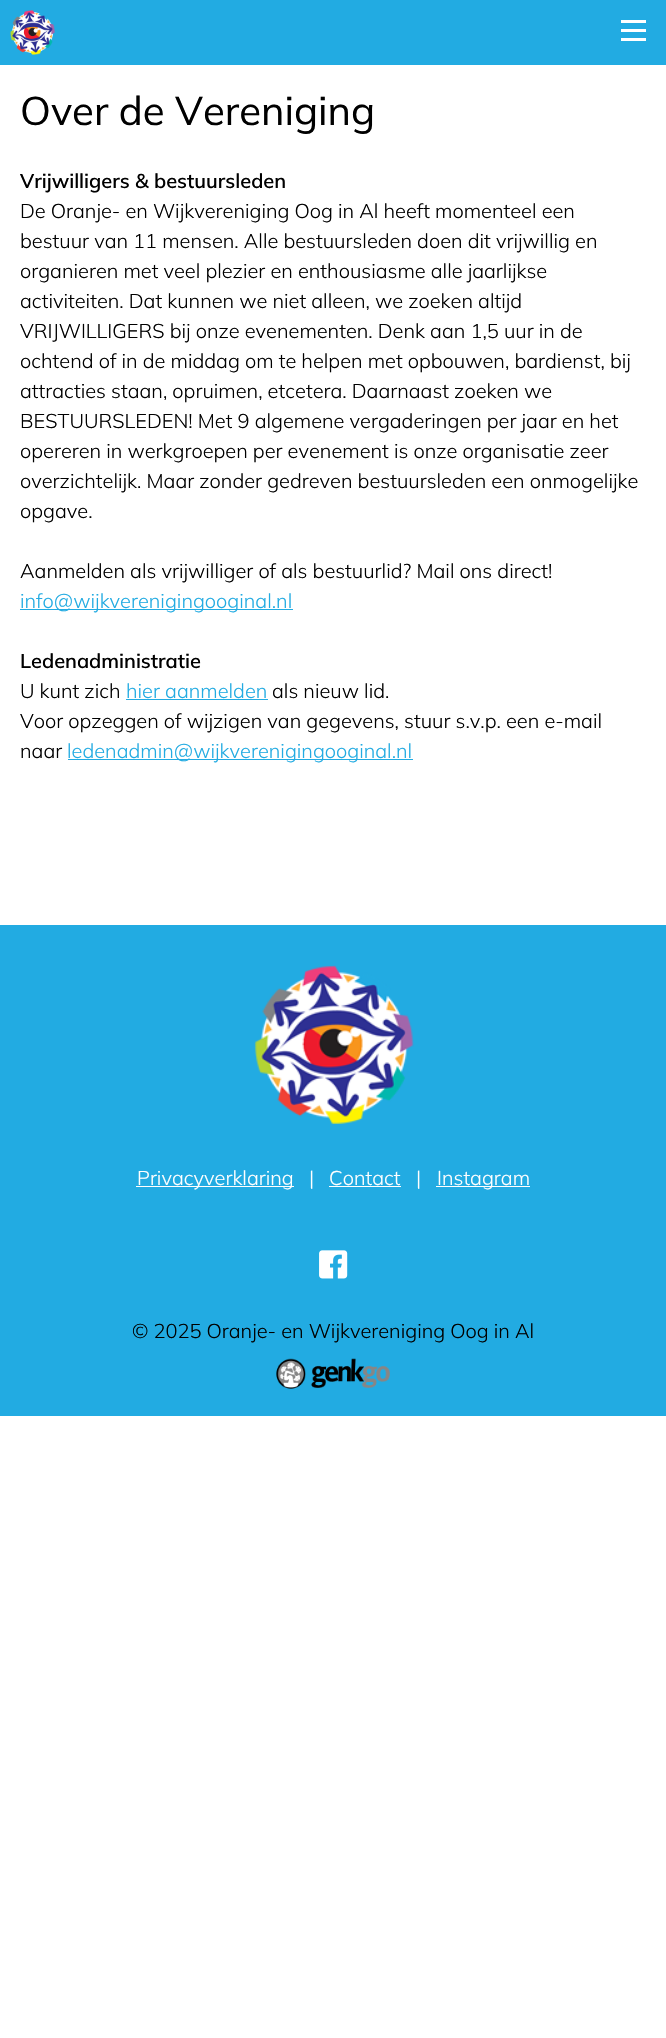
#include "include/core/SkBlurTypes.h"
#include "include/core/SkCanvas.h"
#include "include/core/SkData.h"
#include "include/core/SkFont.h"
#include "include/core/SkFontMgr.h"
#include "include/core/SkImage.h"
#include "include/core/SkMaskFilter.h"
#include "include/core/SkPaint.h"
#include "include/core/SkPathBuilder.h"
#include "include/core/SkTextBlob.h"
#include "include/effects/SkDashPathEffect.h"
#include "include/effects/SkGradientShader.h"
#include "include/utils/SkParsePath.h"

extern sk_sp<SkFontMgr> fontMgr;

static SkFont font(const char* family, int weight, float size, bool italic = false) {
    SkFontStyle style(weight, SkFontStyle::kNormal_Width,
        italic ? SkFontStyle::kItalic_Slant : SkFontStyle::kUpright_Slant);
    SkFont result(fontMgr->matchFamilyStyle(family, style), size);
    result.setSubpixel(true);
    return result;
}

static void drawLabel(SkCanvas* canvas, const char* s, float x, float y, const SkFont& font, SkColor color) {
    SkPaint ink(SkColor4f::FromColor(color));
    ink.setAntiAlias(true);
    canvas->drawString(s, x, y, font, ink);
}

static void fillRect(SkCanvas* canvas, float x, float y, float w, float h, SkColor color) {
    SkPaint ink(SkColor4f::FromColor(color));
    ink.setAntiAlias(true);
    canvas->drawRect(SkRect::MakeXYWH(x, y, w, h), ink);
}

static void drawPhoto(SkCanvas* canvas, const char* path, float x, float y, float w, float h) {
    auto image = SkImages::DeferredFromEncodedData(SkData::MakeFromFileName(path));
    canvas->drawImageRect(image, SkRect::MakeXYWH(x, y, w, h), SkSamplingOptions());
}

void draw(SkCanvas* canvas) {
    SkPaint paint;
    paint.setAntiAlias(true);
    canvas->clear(0xFFFFFFFF);
    fillRect(canvas, 0, 0, 666, 65, 0xFF22ABE2);
    drawPhoto(canvas, "assets/img1.png", 10, 10, 45, 45);
    fillRect(canvas, 621, 29, 25, 3, 0xFFFFFFFF);
    fillRect(canvas, 621, 20, 25, 3, 0xFFFFFFFF);
    fillRect(canvas, 621, 38, 25, 3, 0xFFFFFFFF);
    SkFont font1 = font("Mulish", 400, 40);
    drawLabel(canvas, "Over de Vereniging", 20, 125, font1, 0xFF000000);
    SkFont font2 = font("Mulish", 600, 20);
    drawLabel(canvas, "Vrijwilligers & bestuursleden", 20, 188, font2, 0xFF000000);
    SkFont font3 = font("Mulish", 300, 20);
    drawLabel(canvas, "De Oranje- en Wijkvereniging Oog in Al heeft momenteel een", 20, 218, font3, 0xFF000000);
    drawLabel(canvas, "bestuur van 11 mensen. Alle bestuursleden doen dit vrijwillig en", 20, 248, font3, 0xFF000000);
    drawLabel(canvas, "organieren met veel plezier en enthousiasme alle jaarlijkse", 20, 278, font3, 0xFF000000);
    drawLabel(canvas, "activiteiten. Dat kunnen we niet alleen, we zoeken altijd", 20, 308, font3, 0xFF000000);
    drawLabel(canvas, "VRIJWILLIGERS bij onze evenementen. Denk aan 1,5 uur in de", 20, 338, font3, 0xFF000000);
    drawLabel(canvas, "ochtend of in de middag om te helpen met opbouwen, bardienst, bij", 20, 368, font3, 0xFF000000);
    drawLabel(canvas, "attracties staan, opruimen, etcetera. Daarnaast zoeken we", 20, 398, font3, 0xFF000000);
    drawLabel(canvas, "BESTUURSLEDEN! Met 9 algemene vergaderingen per jaar en het", 20, 428, font3, 0xFF000000);
    drawLabel(canvas, "opereren in werkgroepen per evenement is onze organisatie zeer", 20, 458, font3, 0xFF000000);
    drawLabel(canvas, "overzichtelijk. Maar zonder gedreven bestuursleden een onmogelijke", 20, 488, font3, 0xFF000000);
    drawLabel(canvas, "opgave.", 20, 518, font3, 0xFF000000);
    drawLabel(canvas, "Aanmelden als vrijwilliger of als bestuurlid? Mail ons direct!", 20, 578, font3, 0xFF000000);
    fillRect(canvas, 20, 609, 273, 1, 0xFF22ABE2);
    drawLabel(canvas, "info@wijkverenigingooginal.nl", 20, 608, font3, 0xFF22ABE2);
    drawLabel(canvas, "Ledenadministratie", 20, 668, font2, 0xFF000000);
    drawLabel(canvas, "U kunt zich", 20, 698, font3, 0xFF000000);
    drawLabel(canvas, "hier aanmelden", 126, 698, font3, 0xFF22ABE2);
    fillRect(canvas, 126, 699, 142, 1, 0xFF22ABE2);
    drawLabel(canvas, "als nieuw lid.", 272, 698, font3, 0xFF000000);
    drawLabel(canvas, "Voor opzeggen of wijzigen van gegevens, stuur s.v.p. een e-mail", 20, 728, font3, 0xFF000000);
    drawLabel(canvas, "naar", 20, 758, font3, 0xFF000000);
    fillRect(canvas, 68, 759, 345, 1, 0xFF22ABE2);
    drawLabel(canvas, "ledenadmin@wijkverenigingooginal.nl", 67, 758, font3, 0xFF22ABE2);
    fillRect(canvas, 0, 925, 666, 491, 0xFF22ABE2);
    drawPhoto(canvas, "assets/img2.png", 254, 965, 160, 159);
    fillRect(canvas, 136, 1186, 158, 1, 0xFFFFFFFF);
    drawLabel(canvas, "Privacyverklaring", 137, 1185, font3, 0xFFFFFFFF);
    drawLabel(canvas, "|", 309, 1185, font3, 0xFFFFFFFF);
    drawLabel(canvas, "Contact", 329, 1185, font3, 0xFFFFFFFF);
    fillRect(canvas, 329, 1186, 72, 1, 0xFFFFFFFF);
    drawLabel(canvas, "|", 416, 1185, font3, 0xFFFFFFFF);
    fillRect(canvas, 436, 1186, 94, 1, 0xFFFFFFFF);
    drawLabel(canvas, "Instagram", 437, 1185, font3, 0xFFFFFFFF);
    drawPhoto(canvas, "assets/img3.png", 319, 1250, 29, 29);
    drawLabel(canvas, "© 2025 Oranje- en Wijkvereniging Oog in Al", 132, 1338, font3, 0xFF000000);
    drawPhoto(canvas, "assets/img4.png", 276, 1358, 114, 31);
}
